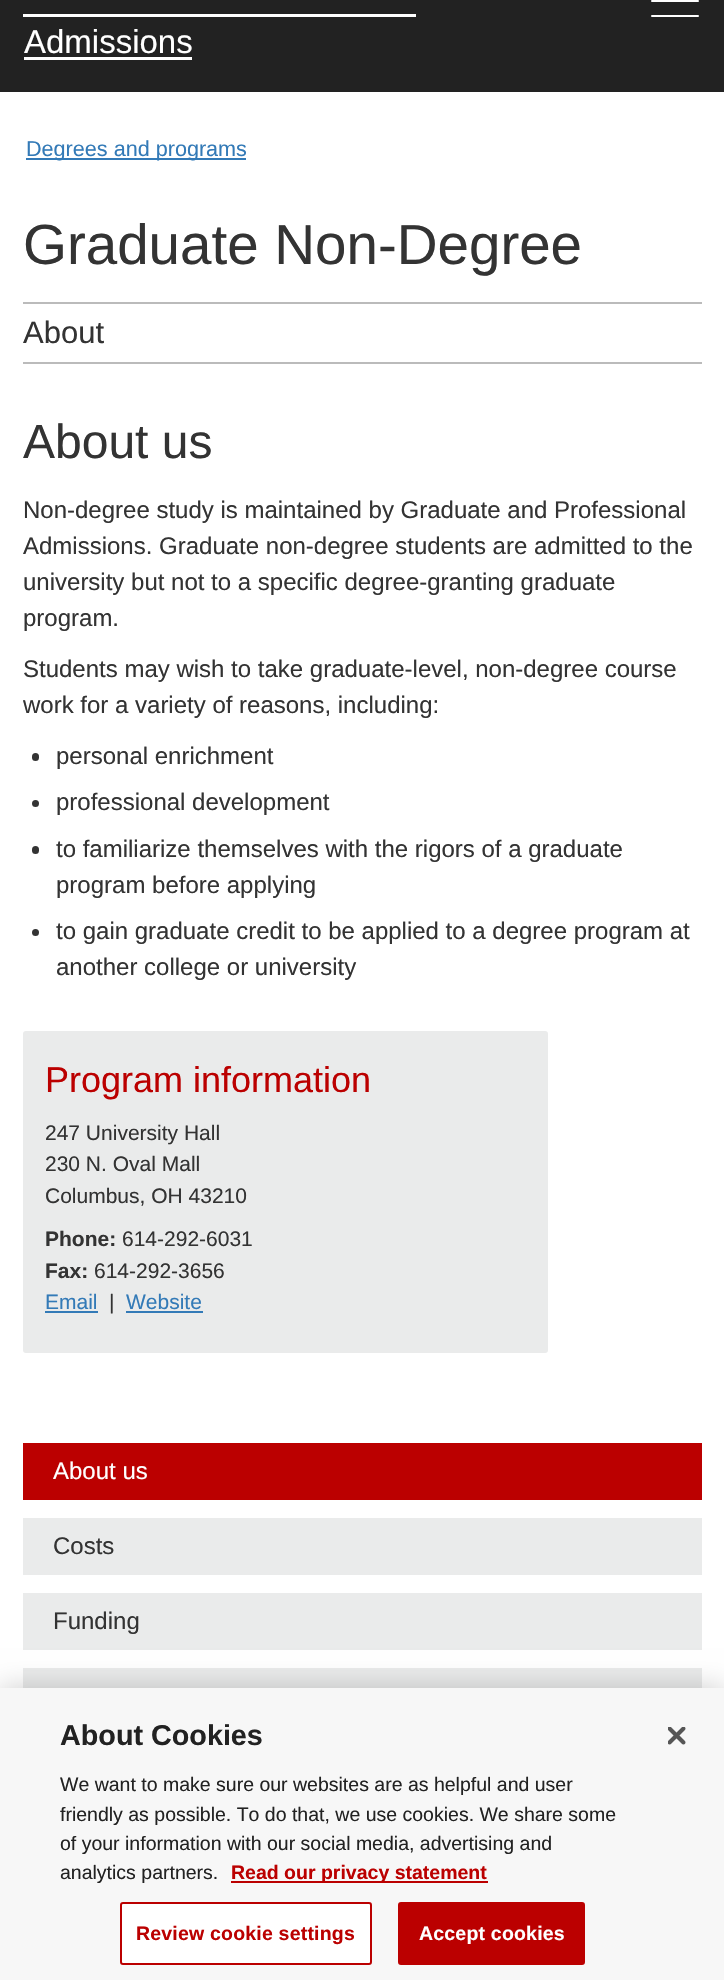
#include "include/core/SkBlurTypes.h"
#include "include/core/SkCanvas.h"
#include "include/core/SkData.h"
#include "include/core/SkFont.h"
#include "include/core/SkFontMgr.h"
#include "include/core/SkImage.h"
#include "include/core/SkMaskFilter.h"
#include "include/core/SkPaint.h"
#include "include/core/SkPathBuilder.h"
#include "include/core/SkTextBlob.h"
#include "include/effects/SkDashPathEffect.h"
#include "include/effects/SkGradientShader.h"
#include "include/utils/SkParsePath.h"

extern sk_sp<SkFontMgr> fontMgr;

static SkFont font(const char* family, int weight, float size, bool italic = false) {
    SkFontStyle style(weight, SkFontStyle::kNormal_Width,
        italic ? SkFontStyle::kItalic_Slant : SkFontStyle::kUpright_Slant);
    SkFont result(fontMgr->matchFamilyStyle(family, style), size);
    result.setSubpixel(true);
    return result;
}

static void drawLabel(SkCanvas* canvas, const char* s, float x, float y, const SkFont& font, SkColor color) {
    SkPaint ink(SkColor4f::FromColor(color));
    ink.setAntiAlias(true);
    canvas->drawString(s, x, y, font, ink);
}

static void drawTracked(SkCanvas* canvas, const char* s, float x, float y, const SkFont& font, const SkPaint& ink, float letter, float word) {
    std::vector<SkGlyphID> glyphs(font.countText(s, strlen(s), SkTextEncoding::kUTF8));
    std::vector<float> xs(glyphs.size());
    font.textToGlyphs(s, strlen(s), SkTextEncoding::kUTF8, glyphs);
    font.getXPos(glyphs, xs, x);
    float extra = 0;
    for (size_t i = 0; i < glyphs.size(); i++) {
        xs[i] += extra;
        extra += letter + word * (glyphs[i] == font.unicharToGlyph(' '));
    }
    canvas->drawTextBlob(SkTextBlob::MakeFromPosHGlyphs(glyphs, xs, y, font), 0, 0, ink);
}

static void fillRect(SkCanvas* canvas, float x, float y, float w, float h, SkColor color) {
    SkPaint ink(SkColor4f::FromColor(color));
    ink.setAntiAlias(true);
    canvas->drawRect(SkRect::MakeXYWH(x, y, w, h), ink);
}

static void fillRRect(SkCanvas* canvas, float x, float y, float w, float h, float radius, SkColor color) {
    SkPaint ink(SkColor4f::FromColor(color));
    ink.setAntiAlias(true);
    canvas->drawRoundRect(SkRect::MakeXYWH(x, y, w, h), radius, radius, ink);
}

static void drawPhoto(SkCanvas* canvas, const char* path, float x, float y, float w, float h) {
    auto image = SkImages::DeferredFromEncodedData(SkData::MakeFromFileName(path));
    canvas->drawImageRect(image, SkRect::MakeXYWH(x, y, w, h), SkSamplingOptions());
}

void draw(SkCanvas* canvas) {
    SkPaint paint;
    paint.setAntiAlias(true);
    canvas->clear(0xFF222222);
    fillRRect(canvas, 651, 0, 48, 2, 1, 0xFFFFFFFF);
    fillRRect(canvas, 651, 15, 48, 2, 1, 0xFFFFFFFF);
    SkFont font1 = font("Liberation Sans", 400, 33);
    drawLabel(canvas, "Admissions", 24, 53, font1, 0xFFFFFFFF);
    fillRect(canvas, 23, 14, 393, 3, 0xFFFFFFFF);
    fillRect(canvas, 24, 57, 168, 3, 0xFFFFFFFF);
    fillRect(canvas, 0, 92, 724, 1596, 0xFFFFFFFF);
    fillRect(canvas, 26, 158, 220, 2, 0xFF337AB7);
    SkFont font2 = font("Liberation Sans", 400, 21.6f);
    drawLabel(canvas, "Degrees and programs", 26, 156, font2, 0xFF337AB7);
    SkFont font3 = font("Liberation Sans", 400, 56.5f);
    drawLabel(canvas, "Graduate Non-Degree", 23, 264, font3, 0xFF333333);
    fillRect(canvas, 23, 302, 679, 2, 0xFFBBBBBB);
    fillRect(canvas, 23, 362, 679, 2, 0xFFBBBBBB);
    SkFont font4 = font("Liberation Sans", 400, 31);
    drawLabel(canvas, "About", 23, 343, font4, 0xFF333333);
    SkFont font5 = font("Liberation Sans", 400, 48);
    drawLabel(canvas, "About us", 23, 458, font5, 0xFF333333);
    SkFont font6 = font("Liberation Sans", 400, 24);
    drawLabel(canvas, "Non-degree study is maintained by Graduate and Professional", 23, 518, font6, 0xFF333333);
    drawLabel(canvas, "Admissions. Graduate non-degree students are admitted to the", 23, 554, font6, 0xFF333333);
    drawLabel(canvas, "university but not to a specific degree-granting graduate", 23, 590, font6, 0xFF333333);
    drawLabel(canvas, "program.", 23, 626, font6, 0xFF333333);
    drawLabel(canvas, "Students may wish to take graduate-level, non-degree course", 23, 677, font6, 0xFF333333);
    drawLabel(canvas, "work for a variety of reasons, including:", 23, 713, font6, 0xFF333333);
    fillRRect(canvas, 32, 753, 7, 8, 3.5f, 0xFF333333);
    drawLabel(canvas, "personal enrichment", 56, 764, font6, 0xFF333333);
    paint.setColor(0xFF333333);
    canvas->drawCircle(35.5f, 803.5f, 3.5f, paint);
    drawLabel(canvas, "professional development", 56, 810, font6, 0xFF333333);
    fillRRect(canvas, 32, 846, 7, 8, 3.5f, 0xFF333333);
    drawLabel(canvas, "to familiarize themselves with the rigors of a graduate", 56, 857, font6, 0xFF333333);
    drawLabel(canvas, "program before applying", 56, 893, font6, 0xFF333333);
    canvas->drawCircle(35.5f, 932.5f, 3.5f, paint);
    drawLabel(canvas, "to gain graduate credit to be applied to a degree program at", 56, 939, font6, 0xFF333333);
    drawLabel(canvas, "another college or university", 56, 975, font6, 0xFF333333);
    fillRRect(canvas, 23, 1031, 525, 322, 3, 0xFFEAEBEB);
    SkFont font7 = font("Liberation Sans", 400, 36);
    drawLabel(canvas, "Program information", 45, 1092, font7, 0xFFBB0000);
    SkFont font8 = font("Liberation Sans", 400, 21);
    drawLabel(canvas, "247 University Hall", 45, 1140, font8, 0xFF333333);
    drawLabel(canvas, "230 N. Oval Mall", 45, 1171, font8, 0xFF333333);
    drawLabel(canvas, "Columbus, OH 43210", 45, 1203, font8, 0xFF333333);
    SkFont font9 = font("Liberation Sans", 700, 21);
    drawLabel(canvas, "Phone:", 45, 1246, font9, 0xFF333333);
    drawLabel(canvas, "614-292-6031", 122, 1246, font8, 0xFF333333);
    drawLabel(canvas, "Fax:", 45, 1278, font9, 0xFF333333);
    drawLabel(canvas, "614-292-3656", 94, 1278, font8, 0xFF333333);
    drawLabel(canvas, "Email", 45, 1309, font8, 0xFF337AB7);
    fillRect(canvas, 45, 1311, 53, 2, 0xFF337AB7);
    drawLabel(canvas, "|", 109, 1309, font8, 0xFF333333);
    drawLabel(canvas, "Website", 126, 1309, font8, 0xFF337AB7);
    fillRect(canvas, 126, 1311, 77, 2, 0xFF337AB7);
    fillRect(canvas, 23, 1443, 679, 57, 0xFFBB0000);
    drawLabel(canvas, "About us", 53, 1479, font6, 0xFFFFFFFF);
    fillRect(canvas, 23, 1518, 679, 57, 0xFFEAEBEB);
    drawLabel(canvas, "Costs", 53, 1554, font6, 0xFF333333);
    fillRect(canvas, 23, 1593, 679, 57, 0xFFEAEBEB);
    drawLabel(canvas, "Funding", 53, 1629, font6, 0xFF333333);
    fillRect(canvas, 23, 1668, 679, 20, 0xFFEAEBEB);
    paint.setColor(0x33000000);
    paint.setMaskFilter(SkMaskFilter::MakeBlur(kNormal_SkBlurStyle, 13.5f));
    canvas->drawRect(SkRect::MakeXYWH(0, 1688, 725, 292), paint);
    paint.setMaskFilter(nullptr);
    fillRect(canvas, 0, 1688, 724, 292, 0xFFF7F7F7);
    SkFont font10 = font("Liberation Sans", 700, 28.75f);
    drawLabel(canvas, "About Cookies", 60, 1745, font10, 0xFF222222);
    SkFont font11 = font("Liberation Sans", 400, 19.5f);
    drawLabel(canvas, "We want to make sure our websites are as helpful and user", 60, 1791, font11, 0xFF222222);
    drawLabel(canvas, "friendly as possible. To do that, we use cookies. We share some", 60, 1821, font11, 0xFF222222);
    drawLabel(canvas, "of your information with our social media, advertising and", 60, 1850, font11, 0xFF222222);
    drawLabel(canvas, "analytics partners.", 60, 1879, font11, 0xFF222222);
    fillRect(canvas, 231, 1881, 257, 2, 0xFFBB0000);
    SkFont font12 = font("Liberation Sans", 700, 19.5f);
    drawLabel(canvas, "Read our privacy statement", 231, 1879, font12, 0xFFBB0000);
    paint.setColor(0xFFFFFFFF);
    canvas->drawRoundRect(SkRect::MakeXYWH(121, 1903, 250, 61), 2, 2, paint);
    paint.setStroke(true);
    paint.setStrokeWidth(2);
    paint.setColor(0xFFBB0000);
    canvas->drawRoundRect(SkRect::MakeXYWH(121, 1903, 250, 61), 2, 2, paint);
    paint.setStroke(false);
    drawTracked(canvas, "Review cookie settings", 136, 1940, font12, paint, 0.2f, 0);
    canvas->drawRoundRect(SkRect::MakeXYWH(399, 1903, 185, 61), 2, 2, paint);
    paint.setStroke(true);
    canvas->drawRoundRect(SkRect::MakeXYWH(399, 1903, 185, 61), 2, 2, paint);
    paint.setStroke(false);
    paint.setColor(0xFFFFFFFF);
    drawTracked(canvas, "Accept cookies", 419, 1940, font12, paint, 0.2f, 0);
    drawPhoto(canvas, "assets/img1.png", 668, 1727, 18, 18);
}
